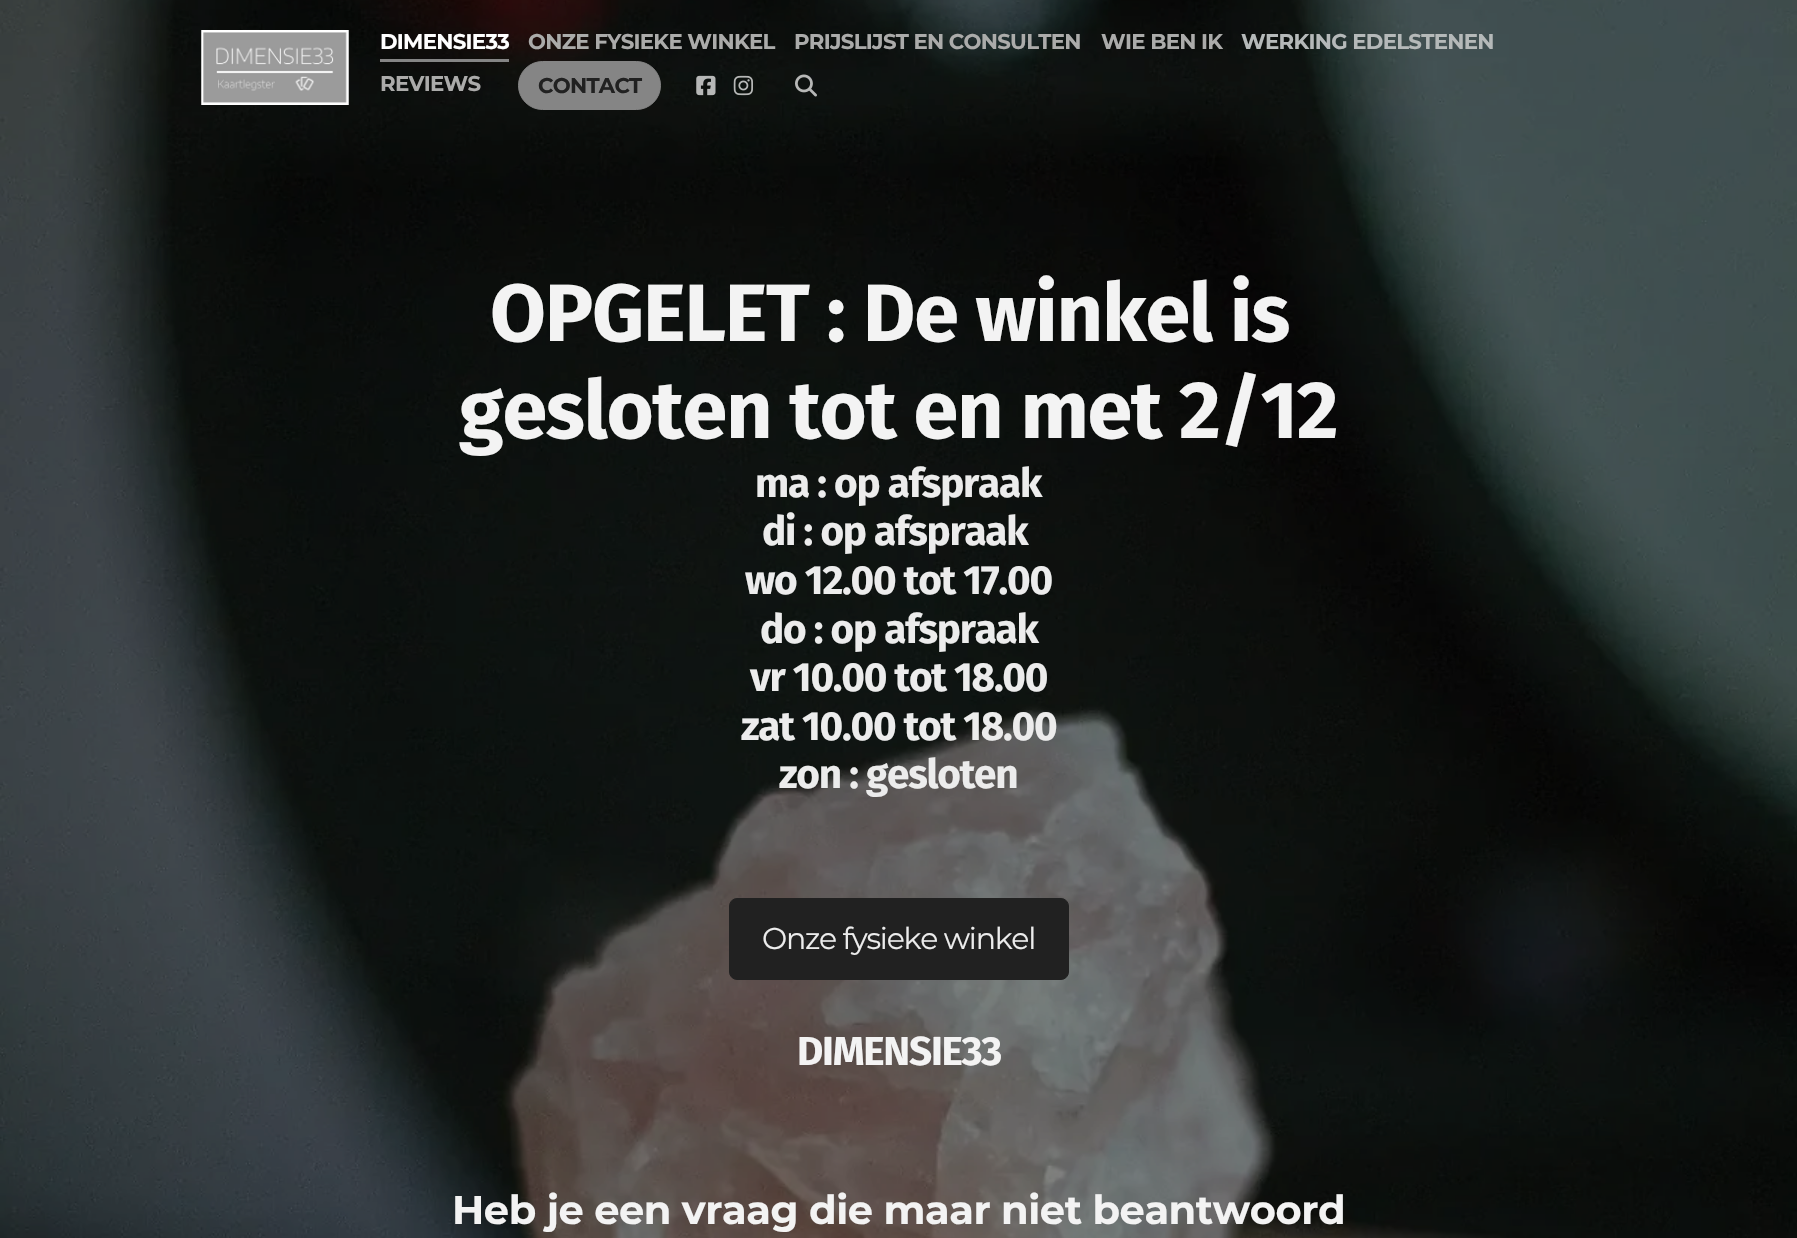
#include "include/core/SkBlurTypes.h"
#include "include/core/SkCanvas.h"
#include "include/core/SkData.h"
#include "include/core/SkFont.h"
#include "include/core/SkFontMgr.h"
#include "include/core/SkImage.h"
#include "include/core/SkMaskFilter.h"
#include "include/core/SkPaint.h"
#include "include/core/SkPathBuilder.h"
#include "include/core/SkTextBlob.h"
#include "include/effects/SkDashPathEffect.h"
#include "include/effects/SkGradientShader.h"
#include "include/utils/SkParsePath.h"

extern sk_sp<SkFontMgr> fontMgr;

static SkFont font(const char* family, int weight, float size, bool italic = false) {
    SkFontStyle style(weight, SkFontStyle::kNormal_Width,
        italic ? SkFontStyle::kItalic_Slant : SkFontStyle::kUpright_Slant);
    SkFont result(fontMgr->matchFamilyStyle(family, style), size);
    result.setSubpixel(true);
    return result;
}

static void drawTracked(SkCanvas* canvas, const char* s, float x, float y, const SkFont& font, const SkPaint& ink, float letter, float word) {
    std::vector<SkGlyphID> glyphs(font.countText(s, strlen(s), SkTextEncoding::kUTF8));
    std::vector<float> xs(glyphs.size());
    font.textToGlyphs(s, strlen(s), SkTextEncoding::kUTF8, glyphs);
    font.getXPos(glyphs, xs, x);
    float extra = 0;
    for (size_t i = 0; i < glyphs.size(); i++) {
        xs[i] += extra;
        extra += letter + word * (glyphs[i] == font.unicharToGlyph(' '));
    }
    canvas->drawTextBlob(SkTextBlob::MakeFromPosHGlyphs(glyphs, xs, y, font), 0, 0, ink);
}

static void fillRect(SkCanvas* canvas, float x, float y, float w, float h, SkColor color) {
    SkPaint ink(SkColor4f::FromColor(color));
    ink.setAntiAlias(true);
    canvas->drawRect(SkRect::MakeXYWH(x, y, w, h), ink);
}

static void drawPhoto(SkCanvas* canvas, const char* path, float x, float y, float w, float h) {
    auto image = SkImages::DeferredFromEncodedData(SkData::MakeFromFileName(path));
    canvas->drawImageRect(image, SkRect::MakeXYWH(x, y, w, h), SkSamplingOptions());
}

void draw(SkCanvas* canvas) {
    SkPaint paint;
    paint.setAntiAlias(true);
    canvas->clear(0xFFFFFFFF);
    drawPhoto(canvas, "assets/img5.png", 0, 0, 1797, 1238);
    drawPhoto(canvas, "assets/img1.png", 201, 30, 148, 75);
    fillRect(canvas, 380, 59, 129, 3, 0xFF858585);
    SkFont font1 = font("Montserrat", 700, 21.25f);
    paint.setColor(0xFFFFFFFF);
    drawTracked(canvas, "DIMENSIE33", 380, 49, font1, paint, -0.7f, 0);
    paint.setColor(0xFFABABAA);
    drawTracked(canvas, "ONZE FYSIEKE WINKEL", 528, 49, font1, paint, -0.7f, 0);
    drawTracked(canvas, "PRIJSLIJST EN CONSULTEN", 794, 49, font1, paint, -0.7f, 0);
    drawTracked(canvas, "WIE BEN IK", 1101, 49, font1, paint, -0.7f, 0);
    paint.setColor(0xFFB5B9B9);
    drawTracked(canvas, "WERKING EDELSTENEN", 1241, 49, font1, paint, -0.7f, 0);
    paint.setColor(0xFFABABAA);
    drawTracked(canvas, "REVIEWS", 380, 91, font1, paint, -0.7f, 0);
    paint.setColor(0xFF858585);
    canvas->drawRoundRect(SkRect::MakeXYWH(518.5f, 61.5f, 142, 48), 24, 24, paint);
    paint.setStroke(true);
    paint.setStrokeWidth(1);
    canvas->drawRoundRect(SkRect::MakeXYWH(518.5f, 61.5f, 142, 48), 24, 24, paint);
    paint.setStroke(false);
    paint.setColor(0xFF212121);
    drawTracked(canvas, "CONTACT", 538, 93, font1, paint, -0.7f, 0);
    drawPhoto(canvas, "assets/img2.png", 696, 75, 20, 21);
    drawPhoto(canvas, "assets/img3.png", 733, 75, 20, 21);
    drawPhoto(canvas, "assets/img4.png", 795, 74, 22, 23);
    SkFont font2 = font("Fira Sans", 700, 81);
    paint.setColor(0xFFF3F3F3);
    drawTracked(canvas, "OPGELET : De winkel is", 490, 341, font2, paint, -1.25f, 0);
    drawTracked(canvas, "gesloten tot en met 2/12", 459, 438, font2, paint, -1.25f, 0);
    SkFont font3 = font("Fira Sans", 700, 40.5f);
    paint.setColor(0xFFECECEC);
    drawTracked(canvas, "ma : op afspraak", 755, 497, font3, paint, -1.25f, 0);
    drawTracked(canvas, "di : op afspraak", 762, 545, font3, paint, -1.25f, 0);
    drawTracked(canvas, "wo 12.00 tot 17.00", 745, 594, font3, paint, -1.25f, 0);
    drawTracked(canvas, "do : op afspraak", 760, 643, font3, paint, -1.25f, 0);
    drawTracked(canvas, "vr 10.00 tot 18.00", 750, 691, font3, paint, -1.25f, 0);
    drawTracked(canvas, "zat 10.00 tot 18.00", 741, 740, font3, paint, -1.25f, 0);
    drawTracked(canvas, "zon : gesloten", 779, 788, font3, paint, -1.25f, 0);
    paint.setColor(0xFF212121);
    canvas->drawRoundRect(SkRect::MakeXYWH(729.5f, 898.5f, 339, 81), 7.5f, 7.5f, paint);
    paint.setStroke(true);
    canvas->drawRoundRect(SkRect::MakeXYWH(729.5f, 898.5f, 339, 81), 7.5f, 7.5f, paint);
    SkFont font4 = font("Montserrat", 400, 30);
    paint.setStroke(false);
    paint.setColor(0xFFECECEC);
    drawTracked(canvas, "Onze fysieke winkel", 762, 949, font4, paint, -1.25f, 0);
    paint.setColor(0xFFF3F3F3);
    drawTracked(canvas, "DIMENSIE33", 797, 1065, font3, paint, -1.25f, 0);
    SkFont font5 = font("Montserrat", 700, 40);
    drawTracked(canvas, "Heb je een vraag die maar niet beantwoord", 452, 1224, font5, paint, -0.45f, 0);
}
